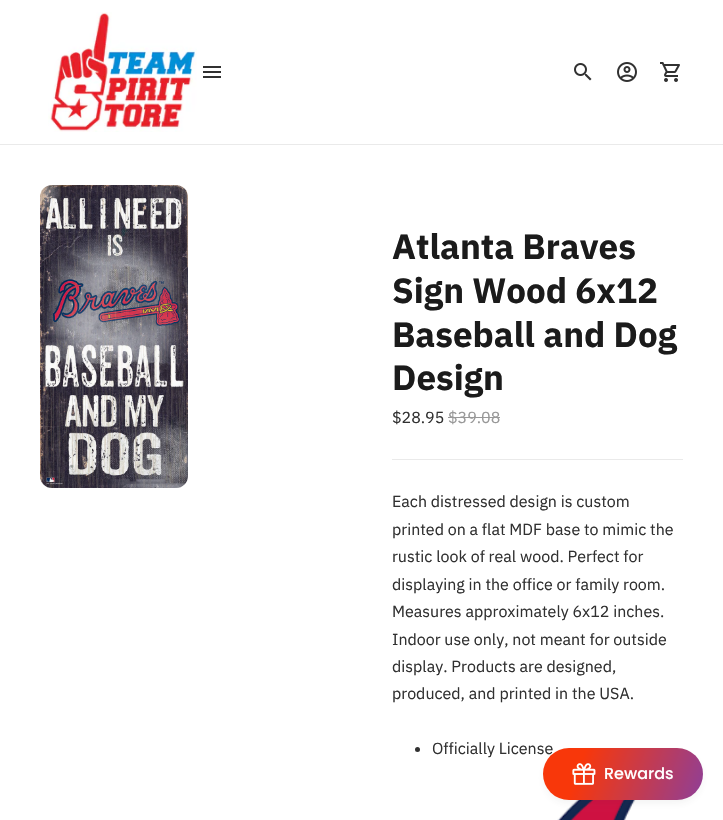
#include "include/core/SkBlurTypes.h"
#include "include/core/SkCanvas.h"
#include "include/core/SkData.h"
#include "include/core/SkFont.h"
#include "include/core/SkFontMgr.h"
#include "include/core/SkImage.h"
#include "include/core/SkMaskFilter.h"
#include "include/core/SkPaint.h"
#include "include/core/SkPathBuilder.h"
#include "include/core/SkTextBlob.h"
#include "include/effects/SkDashPathEffect.h"
#include "include/effects/SkGradientShader.h"
#include "include/utils/SkParsePath.h"

extern sk_sp<SkFontMgr> fontMgr;

static SkFont font(const char* family, int weight, float size, bool italic = false) {
    SkFontStyle style(weight, SkFontStyle::kNormal_Width,
        italic ? SkFontStyle::kItalic_Slant : SkFontStyle::kUpright_Slant);
    SkFont result(fontMgr->matchFamilyStyle(family, style), size);
    result.setSubpixel(true);
    return result;
}

static void drawLabel(SkCanvas* canvas, const char* s, float x, float y, const SkFont& font, SkColor color) {
    SkPaint ink(SkColor4f::FromColor(color));
    ink.setAntiAlias(true);
    canvas->drawString(s, x, y, font, ink);
}

static void fillRect(SkCanvas* canvas, float x, float y, float w, float h, SkColor color) {
    SkPaint ink(SkColor4f::FromColor(color));
    ink.setAntiAlias(true);
    canvas->drawRect(SkRect::MakeXYWH(x, y, w, h), ink);
}

static void drawPhoto(SkCanvas* canvas, const char* path, float x, float y, float w, float h) {
    auto image = SkImages::DeferredFromEncodedData(SkData::MakeFromFileName(path));
    canvas->drawImageRect(image, SkRect::MakeXYWH(x, y, w, h), SkSamplingOptions());
}

void draw(SkCanvas* canvas) {
    SkPaint paint;
    paint.setAntiAlias(true);
    canvas->clear(0xFFFFFFFF);
    fillRect(canvas, 0, 144, 723, 1, 0xFFEAEAEA);
    drawPhoto(canvas, "assets/img1.png", 48, 12, 149, 120);
    drawPhoto(canvas, "assets/img2.png", 203, 66, 18, 12);
    drawPhoto(canvas, "assets/img3.png", 574, 63, 18, 18);
    drawPhoto(canvas, "assets/img4.png", 617, 62, 20, 20);
    drawPhoto(canvas, "assets/img5.png", 660, 62, 20, 20);
    drawPhoto(canvas, "assets/img6.png", 40, 185, 148, 303);
    SkFont font1 = font("IBM Plex Sans", 700, 35);
    drawLabel(canvas, "Atlanta Braves", 392, 259, font1, 0xFF1B1B1B);
    drawLabel(canvas, "Sign Wood 6x12", 392, 303, font1, 0xFF1B1B1B);
    drawLabel(canvas, "Baseball and Dog", 392, 347, font1, 0xFF1B1B1B);
    drawLabel(canvas, "Design", 392, 390, font1, 0xFF1B1B1B);
    SkFont font2 = font("IBM Plex Sans", 400, 16);
    drawLabel(canvas, "$28.95", 392, 423, font2, 0xFF313131);
    drawLabel(canvas, "$39.08", 448, 423, font2, 0xFF989898);
    fillRect(canvas, 448, 417, 52, 1, 0xFF989898);
    fillRect(canvas, 392, 459, 291, 1, 0xFFEAEAEA);
    drawLabel(canvas, "Each distressed design is custom", 392, 507, font2, 0xFF313131);
    drawLabel(canvas, "printed on a flat MDF base to mimic the", 392, 535, font2, 0xFF313131);
    drawLabel(canvas, "rustic look of real wood. Perfect for", 392, 562, font2, 0xFF313131);
    drawLabel(canvas, "displaying in the office or family room.", 392, 590, font2, 0xFF313131);
    drawLabel(canvas, "Measures approximately 6x12 inches.", 392, 617, font2, 0xFF313131);
    drawLabel(canvas, "Indoor use only, not meant for outside", 392, 645, font2, 0xFF313131);
    drawLabel(canvas, "display. Products are designed,", 392, 672, font2, 0xFF313131);
    drawLabel(canvas, "produced, and printed in the USA.", 392, 699, font2, 0xFF313131);
    paint.setColor(0xFF313131);
    canvas->drawCircle(417.5f, 749.5f, 2.5f, paint);
    drawLabel(canvas, "Officially License", 432, 754, font2, 0xFF313131);
    drawPhoto(canvas, "assets/img7.png", 557, 797, 91, 23);
    paint.setColor(0x14444444);
    paint.setMaskFilter(SkMaskFilter::MakeBlur(kNormal_SkBlurStyle, 4));
    canvas->drawRoundRect(SkRect::MakeXYWH(545, 754, 156, 48), 24, 24, paint);
    paint.setMaskFilter(nullptr);
    {
        const SkColor colors[] = {0xFFF8370A, 0xFF5743E2};
        const float stops[] = {0.17f, 1};
        const SkPoint ends[] = {{544, 746}, {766, 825}};
        paint.setShader(SkGradientShader::MakeLinear(ends, colors, stops, 2, SkTileMode::kClamp));
        paint.setAlpha(255);
    }
    canvas->drawRoundRect(SkRect::MakeXYWH(543, 748, 160, 52), 26, 26, paint);
    drawPhoto(canvas, "assets/img8.png", 572, 763, 24, 22);
    SkFont font3 = font("Poppins", 500, 16);
    drawLabel(canvas, "Rewards", 604, 779, font3, 0xFFFFFFFF);
}
